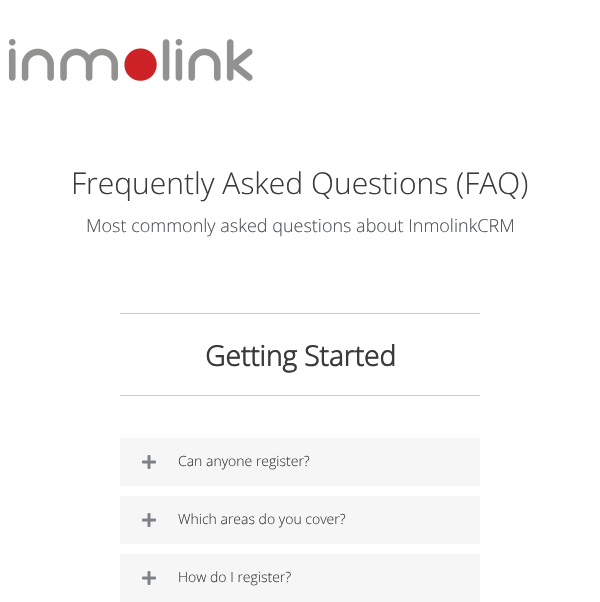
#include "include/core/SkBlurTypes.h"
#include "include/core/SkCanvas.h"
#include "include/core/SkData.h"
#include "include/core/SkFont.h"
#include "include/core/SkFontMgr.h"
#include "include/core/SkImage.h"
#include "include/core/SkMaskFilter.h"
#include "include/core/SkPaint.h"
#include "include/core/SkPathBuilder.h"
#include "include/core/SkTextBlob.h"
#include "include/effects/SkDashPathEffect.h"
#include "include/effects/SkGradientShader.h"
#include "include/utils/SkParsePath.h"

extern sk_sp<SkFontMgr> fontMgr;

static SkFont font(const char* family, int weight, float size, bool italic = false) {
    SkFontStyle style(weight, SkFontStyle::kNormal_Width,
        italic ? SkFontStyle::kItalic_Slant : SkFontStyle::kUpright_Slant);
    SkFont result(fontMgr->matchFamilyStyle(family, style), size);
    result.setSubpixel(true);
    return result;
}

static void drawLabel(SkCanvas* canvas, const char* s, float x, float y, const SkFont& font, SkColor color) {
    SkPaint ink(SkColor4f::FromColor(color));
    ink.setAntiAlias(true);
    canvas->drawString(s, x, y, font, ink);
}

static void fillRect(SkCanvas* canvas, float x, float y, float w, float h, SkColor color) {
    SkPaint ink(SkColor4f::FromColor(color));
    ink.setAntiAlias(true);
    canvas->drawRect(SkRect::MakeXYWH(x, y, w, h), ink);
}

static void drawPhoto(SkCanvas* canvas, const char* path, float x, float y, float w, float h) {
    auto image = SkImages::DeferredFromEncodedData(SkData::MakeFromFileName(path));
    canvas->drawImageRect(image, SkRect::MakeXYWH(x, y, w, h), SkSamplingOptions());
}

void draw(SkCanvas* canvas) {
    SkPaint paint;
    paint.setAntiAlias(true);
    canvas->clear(0xFFFFFFFF);
    drawPhoto(canvas, "assets/img1.png", 8, 38, 245, 43);
    SkFont font1 = font("Open Sans", 300, 30);
    drawLabel(canvas, "Frequently Asked Questions (FAQ)", 71, 194, font1, 0xFF3A3A3A);
    SkFont font2 = font("Open Sans", 300, 18);
    drawLabel(canvas, "Most commonly asked questions about InmolinkCRM", 86, 232, font2, 0xFF4B4F58);
    fillRect(canvas, 120, 313, 360, 1, 0xFFCCCCCC);
    SkFont font3 = font("Open Sans", 700, 28);
    drawLabel(canvas, "Getting Started", 205, 366, font3, 0xFF3A3A3A);
    fillRect(canvas, 120, 395, 360, 1, 0xFFCCCCCC);
    fillRect(canvas, 120, 438, 360, 48, 0xFFF6F6F6);
    drawPhoto(canvas, "assets/img2.png", 142, 455, 14, 14);
    SkFont font4 = font("Open Sans", 300, 14);
    drawLabel(canvas, "Can anyone register?", 178, 466, font4, 0xFF3A3A3A);
    fillRect(canvas, 120, 496, 360, 48, 0xFFF6F6F6);
    drawPhoto(canvas, "assets/img2.png", 142, 513, 14, 14);
    drawLabel(canvas, "Which areas do you cover?", 178, 524, font4, 0xFF3A3A3A);
    fillRect(canvas, 120, 554, 360, 48, 0xFFF6F6F6);
    drawPhoto(canvas, "assets/img2.png", 142, 571, 14, 14);
    drawLabel(canvas, "How do I register?", 178, 582, font4, 0xFF3A3A3A);
}
